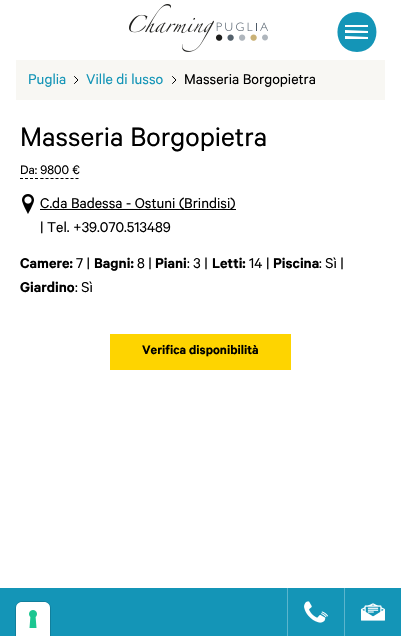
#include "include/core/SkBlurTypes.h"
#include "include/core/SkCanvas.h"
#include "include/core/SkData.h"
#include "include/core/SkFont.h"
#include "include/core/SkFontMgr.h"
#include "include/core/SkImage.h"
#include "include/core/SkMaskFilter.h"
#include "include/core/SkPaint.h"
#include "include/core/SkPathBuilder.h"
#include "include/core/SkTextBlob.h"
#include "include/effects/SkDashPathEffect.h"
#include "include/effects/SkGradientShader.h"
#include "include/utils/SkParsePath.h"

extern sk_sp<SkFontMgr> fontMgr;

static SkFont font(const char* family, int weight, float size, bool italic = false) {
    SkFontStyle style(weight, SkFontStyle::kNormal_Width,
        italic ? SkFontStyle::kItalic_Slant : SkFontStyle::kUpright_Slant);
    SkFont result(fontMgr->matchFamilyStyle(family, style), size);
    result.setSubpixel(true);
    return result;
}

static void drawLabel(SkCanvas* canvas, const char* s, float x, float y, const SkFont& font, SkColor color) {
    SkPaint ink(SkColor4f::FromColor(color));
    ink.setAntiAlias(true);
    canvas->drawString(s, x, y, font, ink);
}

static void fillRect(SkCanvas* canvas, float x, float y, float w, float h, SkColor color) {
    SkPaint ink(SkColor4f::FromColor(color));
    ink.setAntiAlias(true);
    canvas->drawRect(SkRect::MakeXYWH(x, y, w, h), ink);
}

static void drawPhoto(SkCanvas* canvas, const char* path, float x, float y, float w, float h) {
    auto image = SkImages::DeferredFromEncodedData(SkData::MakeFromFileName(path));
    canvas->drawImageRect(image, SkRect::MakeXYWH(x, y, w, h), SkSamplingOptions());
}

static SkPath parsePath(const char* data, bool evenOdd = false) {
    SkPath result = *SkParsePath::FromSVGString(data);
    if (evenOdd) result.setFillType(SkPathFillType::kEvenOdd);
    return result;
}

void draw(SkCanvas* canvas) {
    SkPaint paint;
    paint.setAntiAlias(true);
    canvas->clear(0xFFFFFFFF);
    drawPhoto(canvas, "assets/img1.png", 129, 4, 139, 48);
    paint.setColor(0xFF1495B7);
    canvas->drawPath(parsePath("M357 12C331 12 331 52 357 52C383 52 383 12 357 12ZM368 39H345V36L368 37ZM368 33H345V30L368 31ZM368 27H345V25H368Z"), paint);
    fillRect(canvas, 16, 60, 369, 40, 0xFFF8F7F3);
    SkFont font1 = font("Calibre", 400, 16);
    drawLabel(canvas, "Puglia", 28, 84, font1, 0xFF1495B7);
    paint.setStroke(true);
    paint.setStrokeWidth(1);
    paint.setStrokeCap(SkPaint::kRound_Cap);
    paint.setStrokeJoin(SkPaint::kRound_Join);
    paint.setColor(0xFF000000);
    canvas->drawPath(parsePath("M74.5 76.5L78 80L74.5 83.5"), paint);
    drawLabel(canvas, "Ville di lusso", 86, 84, font1, 0xFF1495B7);
    canvas->drawPath(parsePath("M172.5 76.5L176 80L172.5 83.5"), paint);
    drawLabel(canvas, "Masseria Borgopietra", 184, 84, font1, 0xFF000000);
    SkFont font2 = font("Calibre", 400, 30);
    drawLabel(canvas, "Masseria Borgopietra", 20, 146, font2, 0xFF000000);
    SkFont font3 = font("Calibre", 400, 14);
    drawLabel(canvas, "Da: 9800 €", 20, 174, font3, 0xFF000000);
    paint.setStrokeCap(SkPaint::kButt_Cap);
    paint.setStrokeJoin(SkPaint::kMiter_Join);
    paint.setPathEffect(SkDashPathEffect::Make({{3, 2}}, 0));
    canvas->drawPath(parsePath("M20 178.5H40.5"), paint);
    paint.setPathEffect(nullptr);
    paint.setPathEffect(SkDashPathEffect::Make({{3, 2}}, 0));
    canvas->drawPath(parsePath("M40.5 178.5H80"), paint);
    paint.setPathEffect(nullptr);
    drawPhoto(canvas, "assets/img2.png", 22, 194, 12, 20);
    fillRect(canvas, 40, 209, 196, 1, 0xFF000000);
    drawLabel(canvas, "C.da Badessa - Ostuni (Brindisi)", 40, 208, font1, 0xFF000000);
    drawLabel(canvas, "| Tel. +39.070.513489", 40, 232, font1, 0xFF000000);
    SkFont font4 = font("Calibre", 600, 16);
    drawLabel(canvas, "Camere:", 20, 268, font4, 0xFF000000);
    drawLabel(canvas, "7 |", 76, 268, font1, 0xFF000000);
    drawLabel(canvas, "Bagni:", 94, 268, font4, 0xFF000000);
    drawLabel(canvas, "8 |", 137, 268, font1, 0xFF000000);
    drawLabel(canvas, "Piani", 155, 268, font4, 0xFF000000);
    drawLabel(canvas, ": 3 |", 187, 268, font1, 0xFF000000);
    drawLabel(canvas, "Letti:", 212, 268, font4, 0xFF000000);
    drawLabel(canvas, "14 |", 249, 268, font1, 0xFF000000);
    drawLabel(canvas, "Piscina", 273, 268, font4, 0xFF000000);
    drawLabel(canvas, ": Sì |", 319, 268, font1, 0xFF000000);
    drawLabel(canvas, "Giardino", 20, 292, font4, 0xFF000000);
    drawLabel(canvas, ": Sì", 75, 292, font1, 0xFF000000);
    fillRect(canvas, 110, 334, 181, 36, 0xFFFED400);
    SkFont font5 = font("Calibre", 600, 14);
    drawLabel(canvas, "Verifica disponibilità", 142, 354, font5, 0xFF000000);
    fillRect(canvas, 0, 588, 401, 48, 0xFF1495B7);
    fillRect(canvas, 287, 588, 1, 48, 0xFF5BB5CD);
    drawPhoto(canvas, "assets/img3.png", 304, 601, 24, 22);
    fillRect(canvas, 344, 588, 1, 48, 0xFF5BB5CD);
    drawPhoto(canvas, "assets/img4.png", 361, 603, 24, 18);
    paint.setColor(0xFF117F9C);
    canvas->drawPath(parsePath("M22 601.5H44C47.5 601.5 50.5 604.5 50.5 608V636.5H15.5V608C15.5 604.5 18.5 601.5 22 601.5Z"), paint);
    paint.setStroke(false);
    paint.setColor(0xFFFFFFFF);
    canvas->drawPath(parsePath("M22 602H44C47.5 602 50 604.5 50 608V636H16V608C16 604.5 18.5 602 22 602Z"), paint);
    drawPhoto(canvas, "assets/img5.png", 29, 610, 8, 18);
}
